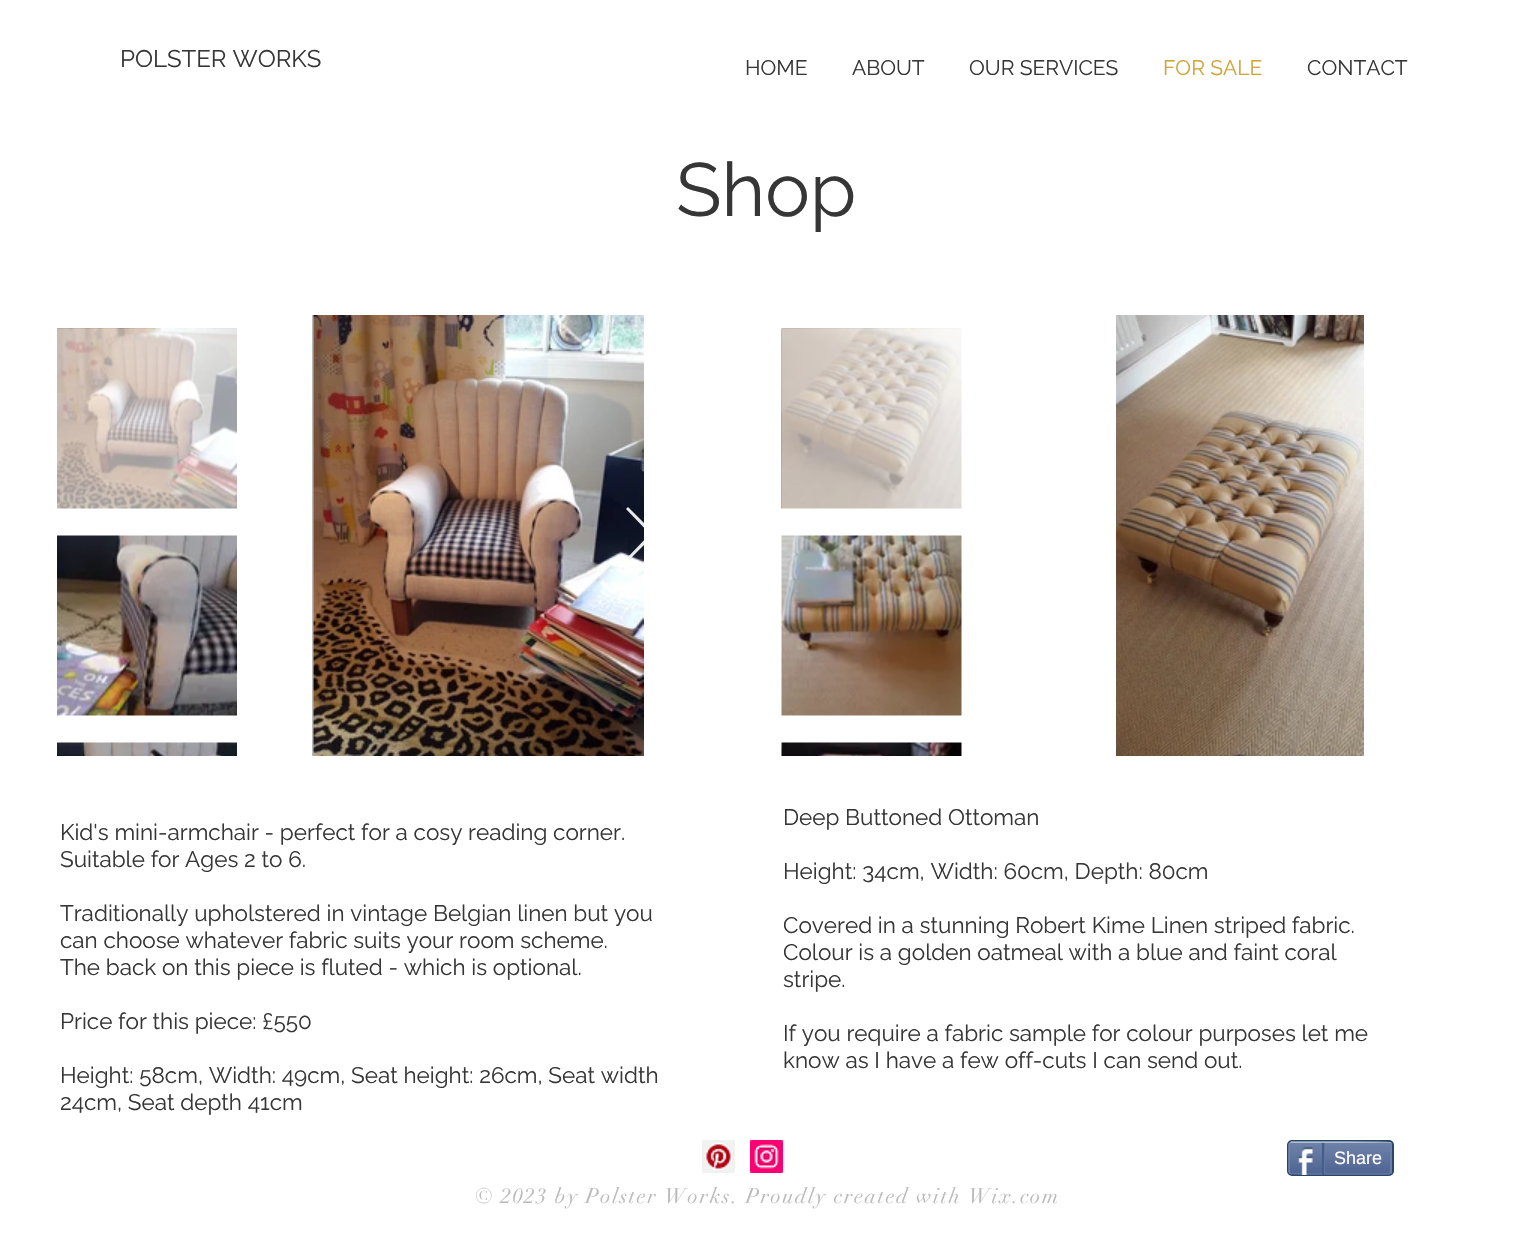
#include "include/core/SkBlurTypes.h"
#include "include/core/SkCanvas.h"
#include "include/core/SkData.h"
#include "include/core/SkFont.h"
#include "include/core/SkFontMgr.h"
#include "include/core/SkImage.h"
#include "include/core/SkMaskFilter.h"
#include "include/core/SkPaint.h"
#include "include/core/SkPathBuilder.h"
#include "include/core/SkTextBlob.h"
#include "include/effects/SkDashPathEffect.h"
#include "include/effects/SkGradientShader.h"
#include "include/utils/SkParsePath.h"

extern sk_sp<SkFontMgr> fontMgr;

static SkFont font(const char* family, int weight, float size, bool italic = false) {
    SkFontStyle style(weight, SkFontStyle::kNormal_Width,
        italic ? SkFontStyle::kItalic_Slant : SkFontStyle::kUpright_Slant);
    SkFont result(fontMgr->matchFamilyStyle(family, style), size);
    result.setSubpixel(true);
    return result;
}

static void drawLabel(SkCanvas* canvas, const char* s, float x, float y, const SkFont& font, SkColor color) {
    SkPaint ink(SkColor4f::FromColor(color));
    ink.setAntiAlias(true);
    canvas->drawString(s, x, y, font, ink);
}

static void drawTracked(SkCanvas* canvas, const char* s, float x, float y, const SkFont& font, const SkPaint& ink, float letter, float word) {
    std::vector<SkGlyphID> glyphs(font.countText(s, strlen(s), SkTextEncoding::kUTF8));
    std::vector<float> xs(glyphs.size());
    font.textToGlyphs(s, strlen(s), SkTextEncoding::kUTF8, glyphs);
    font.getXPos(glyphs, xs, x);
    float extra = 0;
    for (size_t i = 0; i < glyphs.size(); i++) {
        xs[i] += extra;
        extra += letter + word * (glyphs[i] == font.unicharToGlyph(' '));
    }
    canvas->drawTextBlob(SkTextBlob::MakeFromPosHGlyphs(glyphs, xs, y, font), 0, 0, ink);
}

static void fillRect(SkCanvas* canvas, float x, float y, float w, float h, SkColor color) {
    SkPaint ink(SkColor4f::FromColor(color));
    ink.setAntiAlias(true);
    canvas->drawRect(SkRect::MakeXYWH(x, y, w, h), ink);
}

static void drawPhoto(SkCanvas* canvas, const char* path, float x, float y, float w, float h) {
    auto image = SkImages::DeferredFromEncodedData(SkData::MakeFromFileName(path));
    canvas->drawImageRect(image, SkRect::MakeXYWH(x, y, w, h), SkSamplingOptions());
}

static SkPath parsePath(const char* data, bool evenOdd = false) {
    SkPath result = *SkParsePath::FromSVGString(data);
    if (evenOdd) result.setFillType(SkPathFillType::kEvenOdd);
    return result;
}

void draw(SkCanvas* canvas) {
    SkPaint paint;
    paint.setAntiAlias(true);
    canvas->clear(0xFFFFFFFF);
    SkFont font1 = font("Raleway", 400, 24);
    drawLabel(canvas, "POLSTER WORKS", 120, 67, font1, 0xFF363636);
    SkFont font2 = font("Raleway", 400, 21);
    drawLabel(canvas, "HOME", 745, 75, font2, 0xFF363636);
    drawLabel(canvas, "ABOUT", 852, 75, font2, 0xFF363636);
    drawLabel(canvas, "OUR SERVICES", 969, 75, font2, 0xFF363636);
    drawLabel(canvas, "FOR SALE", 1163, 75, font2, 0xFFD1A33D);
    drawLabel(canvas, "CONTACT", 1307, 75, font2, 0xFF363636);
    SkFont font3 = font("Raleway", 400, 75);
    drawLabel(canvas, "Shop", 676, 216, font3, 0xFF363636);
    drawPhoto(canvas, "assets/img1.png", 57, 328, 180, 181);
    drawPhoto(canvas, "assets/img2.png", 57, 535, 180, 181);
    drawPhoto(canvas, "assets/img3.png", 57, 742, 180, 14);
    fillRect(canvas, 312, 315, 2, 441, 0xFFBABABA);
    drawPhoto(canvas, "assets/img4.png", 313, 315, 331, 441);
    paint.setColor(0xE6FFFFFF);
    canvas->drawPath(parsePath("M626 509L628 507L655 534L628 561L626 559L650 534Z"), paint);
    drawPhoto(canvas, "assets/img5.png", 781, 328, 181, 181);
    drawPhoto(canvas, "assets/img6.png", 781, 535, 181, 181);
    drawPhoto(canvas, "assets/img7.png", 781, 742, 181, 14);
    drawPhoto(canvas, "assets/img8.png", 1116, 315, 248, 441);
    SkFont font4 = font("Raleway", 400, 22.5f);
    drawLabel(canvas, "Kid's mini-armchair - perfect for a cosy reading corner.", 60, 840, font4, 0xFF363636);
    drawLabel(canvas, "Suitable for Ages 2 to 6.", 60, 867, font4, 0xFF363636);
    drawLabel(canvas, "Traditionally upholstered in vintage Belgian linen but you", 60, 921, font4, 0xFF363636);
    drawLabel(canvas, "can choose whatever fabric suits your room scheme.", 60, 948, font4, 0xFF363636);
    drawLabel(canvas, "The back on this piece is fluted - which is optional.", 60, 975, font4, 0xFF363636);
    drawLabel(canvas, "Price for this piece: £550", 60, 1029, font4, 0xFF363636);
    drawLabel(canvas, "Height: 58cm, Width: 49cm, Seat height: 26cm, Seat width", 60, 1083, font4, 0xFF363636);
    drawLabel(canvas, "24cm, Seat depth 41cm", 60, 1110, font4, 0xFF363636);
    drawLabel(canvas, "Deep Buttoned Ottoman", 783, 825, font4, 0xFF363636);
    drawLabel(canvas, "Height: 34cm, Width: 60cm, Depth: 80cm", 783, 879, font4, 0xFF363636);
    drawLabel(canvas, "Covered in a stunning Robert Kime Linen striped fabric.", 783, 933, font4, 0xFF363636);
    drawLabel(canvas, "Colour is a golden oatmeal with a blue and faint coral", 783, 960, font4, 0xFF363636);
    drawLabel(canvas, "stripe.", 783, 987, font4, 0xFF363636);
    drawLabel(canvas, "If you require a fabric sample for colour purposes let me", 783, 1041, font4, 0xFF363636);
    drawLabel(canvas, "know as I have a few off-cuts I can send out.", 783, 1068, font4, 0xFF363636);
    drawPhoto(canvas, "assets/img9.png", 702, 1140, 33, 33);
    drawPhoto(canvas, "assets/img10.png", 750, 1140, 33, 33);
    paint.setStroke(true);
    paint.setStrokeWidth(2);
    paint.setColor(0xFF2D4565);
    canvas->drawRoundRect(SkRect::MakeXYWH(1288, 1141, 105, 34), 4, 4, paint);
    drawPhoto(canvas, "assets/img11.png", 1288, 1143, 104, 32);
    paint.setStrokeWidth(1.5f);
    paint.setColor(0xFF9AABC6);
    canvas->drawPath(parsePath("M1290 1143L1291.5 1142H1308C1316 1142 1388.5 1141.5 1390 1142.5L1390.5 1143"), paint);
    paint.setColor(0xFF6F83AD);
    canvas->drawPath(parsePath("M1390.5 1143C1391 1143.5 1391 1144 1391 1144.5V1171.5C1391 1172 1391 1172.5 1390.5 1173"), paint);
    paint.setColor(0xFF6176A3);
    canvas->drawPath(parsePath("M1390.5 1173L1389 1174H1373C1364.5 1174 1292 1174.5 1290.5 1173.5L1290 1173"), paint);
    paint.setColor(0xFF6F83AD);
    canvas->drawPath(parsePath("M1290 1173C1289.5 1172.5 1289 1172 1289 1171.5V1144.5C1289 1144 1289.5 1143.5 1290 1143"), paint);
    drawPhoto(canvas, "assets/img12.png", 1297, 1147, 16, 28);
    fillRect(canvas, 1322, 1143, 2, 32, 0xFF425E85);
    SkFont font5 = font("Liberation Sans", 400, 18);
    drawLabel(canvas, "Share", 1334, 1164, font5, 0xFFFFFFFF);
    fillRect(canvas, 1324, 1143, 1, 30, 0xFF6176A3);
    SkFont font6 = font("didot", 400, 21);
    paint.setStroke(false);
    paint.setColor(0xFFBABABA);
    drawTracked(canvas, "© 2023 by Polster Works. Proudly created with Wix.com", 475, 1203, font6, paint, 1.68f, 0);
}
